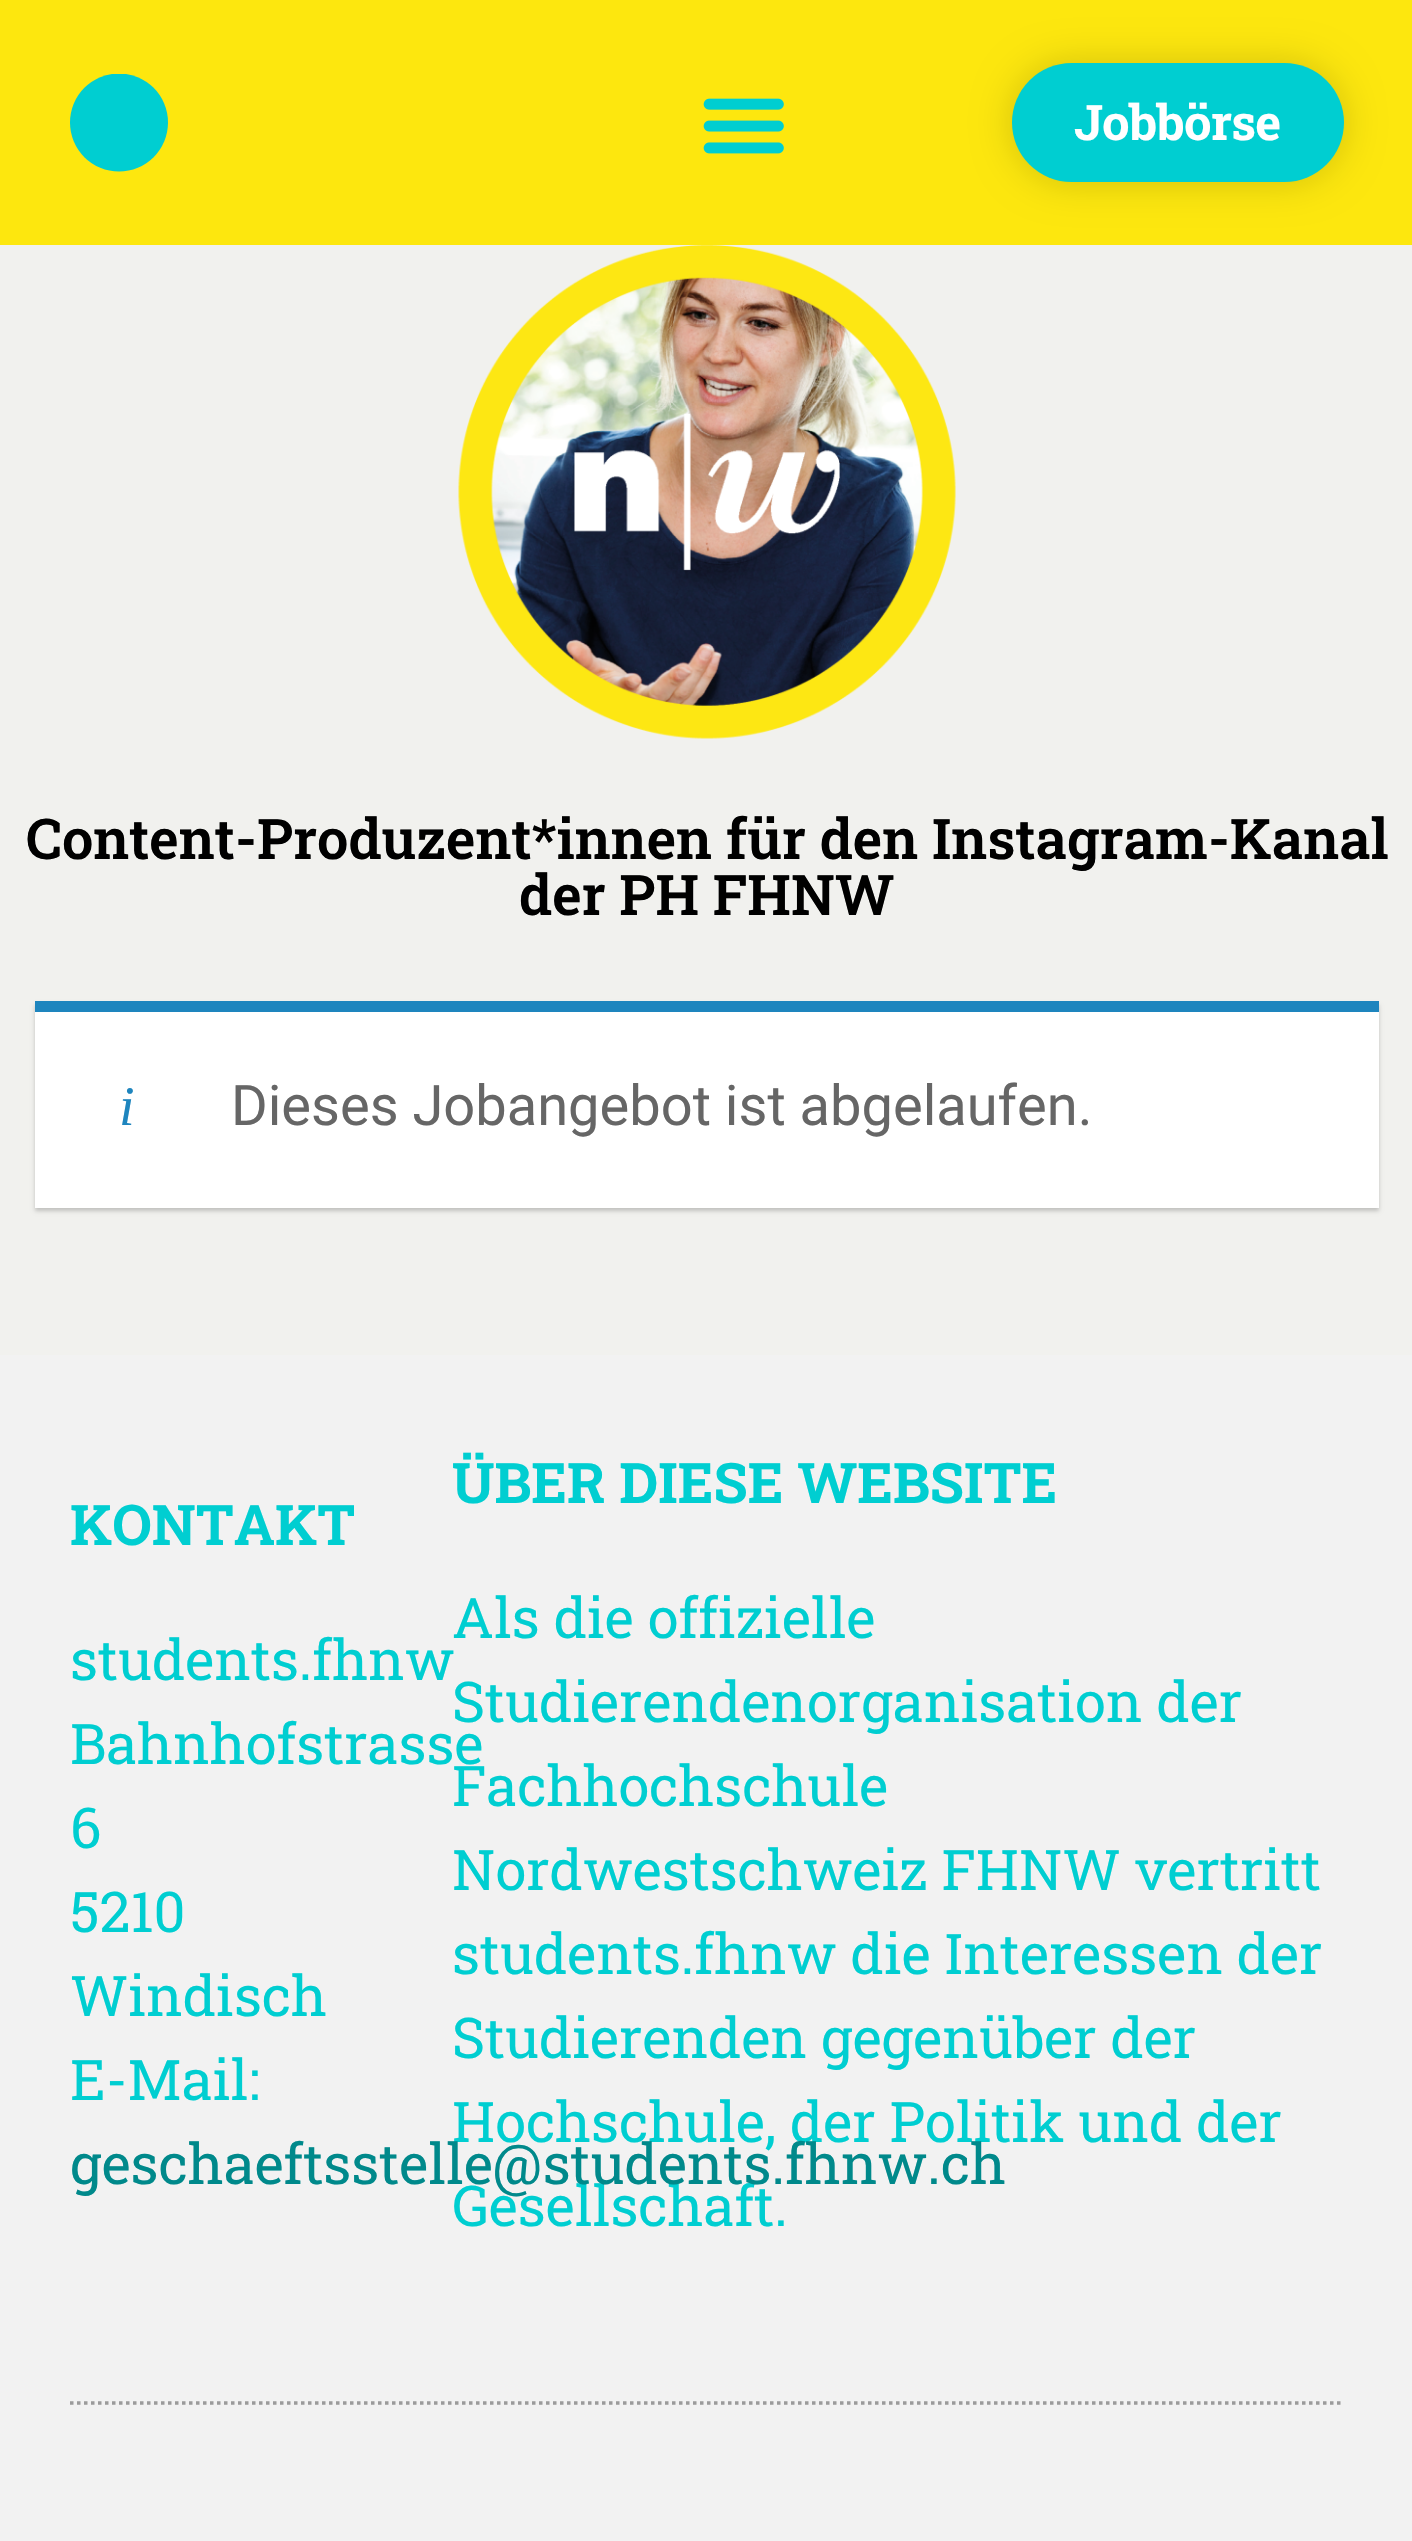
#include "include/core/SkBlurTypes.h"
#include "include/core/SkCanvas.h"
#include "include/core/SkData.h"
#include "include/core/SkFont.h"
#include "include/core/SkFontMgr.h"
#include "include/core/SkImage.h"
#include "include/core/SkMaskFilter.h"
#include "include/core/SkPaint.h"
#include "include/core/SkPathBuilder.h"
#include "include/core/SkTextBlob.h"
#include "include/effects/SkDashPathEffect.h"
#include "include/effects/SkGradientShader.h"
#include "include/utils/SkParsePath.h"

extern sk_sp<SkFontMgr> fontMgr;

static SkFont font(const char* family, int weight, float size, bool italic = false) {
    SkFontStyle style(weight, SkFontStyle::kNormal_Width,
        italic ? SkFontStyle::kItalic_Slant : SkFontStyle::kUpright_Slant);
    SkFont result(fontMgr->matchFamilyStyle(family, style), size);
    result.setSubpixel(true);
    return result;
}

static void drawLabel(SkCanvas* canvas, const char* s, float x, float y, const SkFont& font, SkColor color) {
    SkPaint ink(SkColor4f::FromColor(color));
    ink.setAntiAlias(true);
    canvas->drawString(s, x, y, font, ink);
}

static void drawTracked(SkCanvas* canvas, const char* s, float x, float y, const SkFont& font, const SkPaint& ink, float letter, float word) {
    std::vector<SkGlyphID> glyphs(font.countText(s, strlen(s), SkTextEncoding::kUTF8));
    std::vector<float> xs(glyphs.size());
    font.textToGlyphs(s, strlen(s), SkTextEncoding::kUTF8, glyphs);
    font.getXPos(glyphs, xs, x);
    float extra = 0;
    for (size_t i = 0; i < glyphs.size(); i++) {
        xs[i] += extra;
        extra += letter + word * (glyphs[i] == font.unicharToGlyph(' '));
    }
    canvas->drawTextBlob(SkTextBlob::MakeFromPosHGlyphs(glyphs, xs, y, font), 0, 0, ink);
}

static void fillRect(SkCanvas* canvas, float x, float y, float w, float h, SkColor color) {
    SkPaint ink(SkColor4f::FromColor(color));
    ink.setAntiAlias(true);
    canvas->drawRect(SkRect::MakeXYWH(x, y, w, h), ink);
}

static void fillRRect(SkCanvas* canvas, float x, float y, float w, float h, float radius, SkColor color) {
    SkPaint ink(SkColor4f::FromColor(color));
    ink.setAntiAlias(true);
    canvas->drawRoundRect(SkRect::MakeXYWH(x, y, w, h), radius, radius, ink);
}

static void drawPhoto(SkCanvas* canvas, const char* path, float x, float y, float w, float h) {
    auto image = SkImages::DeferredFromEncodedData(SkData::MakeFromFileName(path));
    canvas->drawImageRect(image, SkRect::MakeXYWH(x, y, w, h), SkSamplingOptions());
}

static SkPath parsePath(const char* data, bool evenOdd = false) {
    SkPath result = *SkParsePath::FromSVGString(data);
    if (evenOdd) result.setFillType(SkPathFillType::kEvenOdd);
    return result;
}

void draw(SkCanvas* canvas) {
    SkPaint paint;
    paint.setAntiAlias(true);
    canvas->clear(0xFFF1F1EE);
    fillRect(canvas, 0, 0, 1412, 245, 0xFFFDE70E);
    canvas->save();
    canvas->clipRect(SkRect::MakeXYWH(70, 74, 98, 98));
    paint.setColor(0xFF00CED1);
    canvas->drawCircle(119, 122.5f, 49, paint);
    canvas->restore();
    drawPhoto(canvas, "assets/img1.png", 703, 98, 81, 56);
    paint.setColor(0x2B000000);
    paint.setMaskFilter(SkMaskFilter::MakeBlur(kNormal_SkBlurStyle, 19));
    canvas->drawRoundRect(SkRect::MakeXYWH(1012, 63, 332, 119), 59.5f, 59.5f, paint);
    paint.setMaskFilter(nullptr);
    fillRRect(canvas, 1012, 63, 332, 119, 59.5f, 0xFF00CED1);
    SkFont font1 = font("Roboto Slab", 700, 49);
    paint.setColor(0xFFFFFFFF);
    drawTracked(canvas, "Jobbörse", 1074, 140, font1, paint, -0.75f, 0);
    drawPhoto(canvas, "assets/img2.png", 458, 245, 498, 494);
    SkFont font2 = font("Roboto Slab", 600, 56);
    drawLabel(canvas, "Content-Produzent*innen für den Instagram-Kanal", 26, 859, font2, 0xFF000000);
    drawLabel(canvas, "der PH FHNW", 519, 915, font2, 0xFF000000);
    paint.setColor(0x33000000);
    paint.setMaskFilter(SkMaskFilter::MakeBlur(kNormal_SkBlurStyle, 2));
    canvas->drawRect(SkRect::MakeXYWH(35, 1005, 1344, 206), paint);
    paint.setMaskFilter(nullptr);
    fillRect(canvas, 35, 1012, 1344, 196, 0xFFFFFFFF);
    fillRect(canvas, 35, 1001, 1344, 11, 0xFF1E85BE);
    SkFont font3 = font("Liberation Serif", 400, 56, true);
    drawLabel(canvas, "i", 119, 1125, font3, 0xFF1E85BE);
    SkFont font4 = font("Roboto", 400, 56);
    drawLabel(canvas, "Dieses Jobangebot ist abgelaufen.", 231, 1125, font4, 0xFF666666);
    fillRect(canvas, 0, 1355, 1412, 1186, 0xFFF2F2F2);
    paint.setStroke(true);
    paint.setStrokeWidth(3.5f);
    paint.setColor(0xFF9B9B9B);
    paint.setPathEffect(SkDashPathEffect::Make({{3.5f, 3.5f}}, 0));
    canvas->drawPath(parsePath("M70 2403H1344"), paint);
    paint.setPathEffect(nullptr);
    SkFont font5 = font("Roboto Slab", 700, 56);
    drawLabel(canvas, "ÜBER DIESE WEBSITE", 452, 1503, font5, 0xFF00CED1);
    SkFont font6 = font("Roboto Slab", 400, 56);
    drawLabel(canvas, "Als die offizielle", 452, 1638, font6, 0xFF00CED1);
    drawLabel(canvas, "Studierendenorganisation der", 452, 1722, font6, 0xFF00CED1);
    drawLabel(canvas, "Fachhochschule", 452, 1806, font6, 0xFF00CED1);
    drawLabel(canvas, "Nordwestschweiz FHNW vertritt", 452, 1890, font6, 0xFF00CED1);
    drawLabel(canvas, "students.fhnw die Interessen der", 452, 1974, font6, 0xFF00CED1);
    drawLabel(canvas, "Studierenden gegenüber der", 452, 2058, font6, 0xFF00CED1);
    drawLabel(canvas, "Hochschule, der Politik und der", 452, 2142, font6, 0xFF00CED1);
    drawLabel(canvas, "Gesellschaft.", 452, 2226, font6, 0xFF00CED1);
    drawLabel(canvas, "KONTAKT", 70, 1545, font5, 0xFF00CED1);
    drawLabel(canvas, "students.fhnw", 70, 1680, font6, 0xFF00CED1);
    drawLabel(canvas, "Bahnhofstrasse", 70, 1764, font6, 0xFF00CED1);
    drawLabel(canvas, "6", 70, 1848, font6, 0xFF00CED1);
    drawLabel(canvas, "5210", 70, 1932, font6, 0xFF00CED1);
    drawLabel(canvas, "Windisch", 70, 2016, font6, 0xFF00CED1);
    drawLabel(canvas, "E-Mail:", 70, 2100, font6, 0xFF00CED1);
    drawLabel(canvas, "geschaeftsstelle@students.fhnw.ch", 70, 2184, font6, 0xFF00898B);
}
